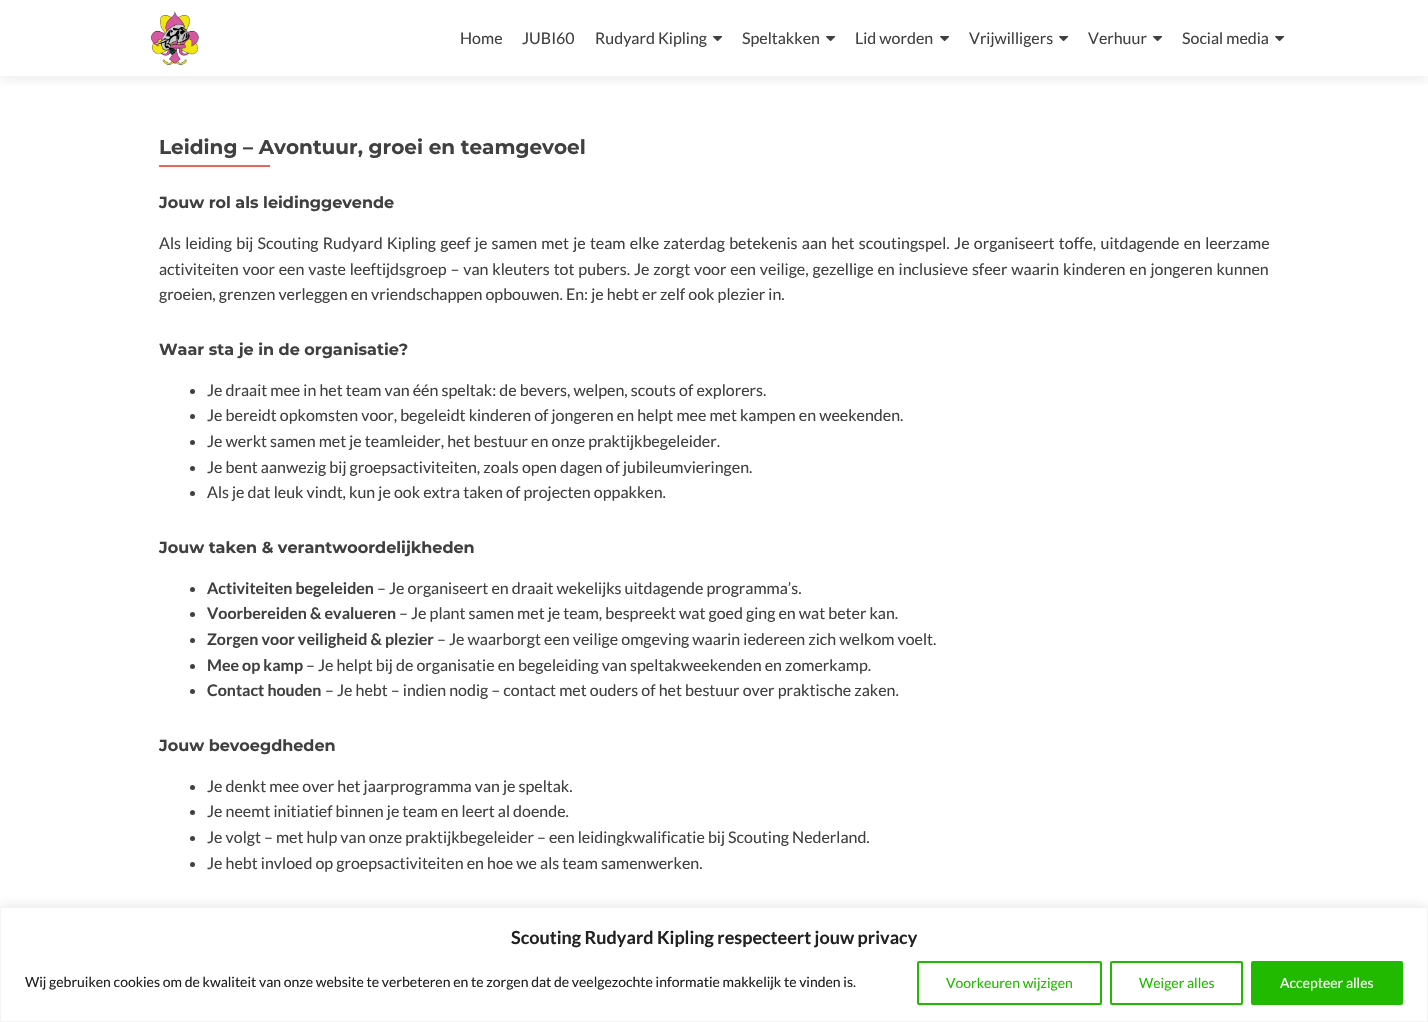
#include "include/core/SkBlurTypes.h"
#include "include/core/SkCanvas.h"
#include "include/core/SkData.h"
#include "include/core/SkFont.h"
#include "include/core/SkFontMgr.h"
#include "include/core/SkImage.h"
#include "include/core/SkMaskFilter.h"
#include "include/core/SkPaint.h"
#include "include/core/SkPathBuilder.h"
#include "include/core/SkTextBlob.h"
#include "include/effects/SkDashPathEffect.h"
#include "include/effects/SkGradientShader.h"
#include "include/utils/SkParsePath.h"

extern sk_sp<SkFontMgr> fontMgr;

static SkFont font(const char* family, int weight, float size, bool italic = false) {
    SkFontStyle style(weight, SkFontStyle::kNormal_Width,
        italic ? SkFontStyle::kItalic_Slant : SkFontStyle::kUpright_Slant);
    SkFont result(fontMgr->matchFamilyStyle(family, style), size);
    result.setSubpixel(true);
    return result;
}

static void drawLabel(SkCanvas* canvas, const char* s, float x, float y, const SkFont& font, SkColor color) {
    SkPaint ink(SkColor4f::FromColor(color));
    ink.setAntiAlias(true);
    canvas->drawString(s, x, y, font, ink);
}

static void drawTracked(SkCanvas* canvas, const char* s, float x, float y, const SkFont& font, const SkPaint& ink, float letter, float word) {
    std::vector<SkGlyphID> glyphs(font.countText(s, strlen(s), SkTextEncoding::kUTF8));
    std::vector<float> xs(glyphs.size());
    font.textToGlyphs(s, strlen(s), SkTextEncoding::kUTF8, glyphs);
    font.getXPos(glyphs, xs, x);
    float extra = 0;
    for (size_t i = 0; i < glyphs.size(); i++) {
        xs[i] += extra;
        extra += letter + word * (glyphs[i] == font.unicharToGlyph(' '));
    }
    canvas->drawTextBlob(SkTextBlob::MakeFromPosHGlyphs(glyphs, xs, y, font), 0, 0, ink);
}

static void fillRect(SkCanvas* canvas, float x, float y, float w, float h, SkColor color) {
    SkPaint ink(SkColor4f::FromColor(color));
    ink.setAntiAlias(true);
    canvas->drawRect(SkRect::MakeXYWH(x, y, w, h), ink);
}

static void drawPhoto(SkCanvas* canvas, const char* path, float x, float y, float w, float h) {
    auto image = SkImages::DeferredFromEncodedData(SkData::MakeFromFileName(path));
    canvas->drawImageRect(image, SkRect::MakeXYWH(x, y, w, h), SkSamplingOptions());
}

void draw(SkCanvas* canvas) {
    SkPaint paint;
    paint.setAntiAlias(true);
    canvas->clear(0xFFFFFFFF);
    canvas->save();
    canvas->clipRect(SkRect::MakeXYWH(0, 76, 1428, 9));
    paint.setColor(0x14323232);
    paint.setMaskFilter(SkMaskFilter::MakeBlur(kNormal_SkBlurStyle, 5.5f));
    canvas->drawRect(SkRect::MakeXYWH(0, 5, 1428, 76), paint);
    paint.setMaskFilter(nullptr);
    canvas->restore();
    drawPhoto(canvas, "assets/img1.png", 150, 11, 49, 54);
    SkFont font1 = font("Lato", 400, 16);
    drawLabel(canvas, "Home", 460, 44, font1, 0xFF404040);
    drawLabel(canvas, "JUBI60", 522, 44, font1, 0xFF404040);
    drawLabel(canvas, "Rudyard Kipling", 595, 44, font1, 0xFF404040);
    drawPhoto(canvas, "assets/img2.png", 713, 36, 10, 6);
    drawLabel(canvas, "Speltakken", 742, 44, font1, 0xFF404040);
    drawPhoto(canvas, "assets/img2.png", 826, 36, 10, 6);
    drawLabel(canvas, "Lid worden", 855, 44, font1, 0xFF404040);
    drawPhoto(canvas, "assets/img2.png", 940, 36, 10, 6);
    drawLabel(canvas, "Vrijwilligers", 969, 44, font1, 0xFF404040);
    drawPhoto(canvas, "assets/img2.png", 1059, 36, 10, 6);
    drawLabel(canvas, "Verhuur", 1088, 44, font1, 0xFF404040);
    drawPhoto(canvas, "assets/img2.png", 1153, 36, 10, 6);
    drawLabel(canvas, "Social media", 1182, 44, font1, 0xFF404040);
    drawPhoto(canvas, "assets/img2.png", 1275, 36, 10, 6);
    SkFont font2 = font("Montserrat", 700, 20);
    drawLabel(canvas, "Leiding – Avontuur, groei en teamgevoel", 159, 154, font2, 0xFF404040);
    fillRect(canvas, 159, 165, 111, 2, 0xFFE96656);
    SkFont font3 = font("Montserrat", 700, 16);
    drawLabel(canvas, "Jouw rol als leidinggevende", 159, 208, font3, 0xFF404040);
    paint.setColor(0xFF404040);
    drawTracked(canvas, "Als leiding bij Scouting Rudyard Kipling geef je samen met je team elke zaterdag betekenis aan het scoutingspel. Je organiseert toffe, uitdagende en leerzame", 159, 249, font1, paint, 0, 1.2f);
    drawTracked(canvas, "activiteiten voor een vaste leeftijdsgroep – van kleuters tot pubers. Je zorgt voor een veilige, gezellige en inclusieve sfeer waarin kinderen en jongeren kunnen", 159, 275, font1, paint, 0, 0.75f);
    drawLabel(canvas, "groeien, grenzen verleggen en vriendschappen opbouwen. En: je hebt er zelf ook plezier in.", 159, 300, font1, 0xFF404040);
    drawLabel(canvas, "Waar sta je in de organisatie?", 159, 355, font3, 0xFF404040);
    canvas->drawCircle(192.5f, 391.5f, 2.5f, paint);
    drawLabel(canvas, "Je draait mee in het team van één speltak: de bevers, welpen, scouts of explorers.", 207, 396, font1, 0xFF404040);
    canvas->drawCircle(192.5f, 416.5f, 2.5f, paint);
    drawLabel(canvas, "Je bereidt opkomsten voor, begeleidt kinderen of jongeren en helpt mee met kampen en weekenden.", 207, 421, font1, 0xFF404040);
    canvas->drawCircle(192.5f, 442.5f, 2.5f, paint);
    drawLabel(canvas, "Je werkt samen met je teamleider, het bestuur en onze praktijkbegeleider.", 207, 447, font1, 0xFF404040);
    canvas->drawCircle(192.5f, 468.5f, 2.5f, paint);
    drawLabel(canvas, "Je bent aanwezig bij groepsactiviteiten, zoals open dagen of jubileumvieringen.", 207, 473, font1, 0xFF404040);
    canvas->drawCircle(192.5f, 493.5f, 2.5f, paint);
    drawLabel(canvas, "Als je dat leuk vindt, kun je ook extra taken of projecten oppakken.", 207, 498, font1, 0xFF404040);
    drawLabel(canvas, "Jouw taken & verantwoordelijkheden", 159, 553, font3, 0xFF404040);
    canvas->drawCircle(192.5f, 589.5f, 2.5f, paint);
    SkFont font4 = font("Lato", 700, 16);
    drawLabel(canvas, "Activiteiten begeleiden", 207, 594, font4, 0xFF404040);
    drawLabel(canvas, "– Je organiseert en draait wekelijks uitdagende programma’s.", 377, 594, font1, 0xFF404040);
    canvas->drawCircle(192.5f, 614.5f, 2.5f, paint);
    drawLabel(canvas, "Voorbereiden & evalueren", 207, 619, font4, 0xFF404040);
    drawLabel(canvas, "– Je plant samen met je team, bespreekt wat goed ging en wat beter kan.", 399, 619, font1, 0xFF404040);
    canvas->drawCircle(192.5f, 640.5f, 2.5f, paint);
    drawLabel(canvas, "Zorgen voor veiligheid & plezier", 207, 645, font4, 0xFF404040);
    drawLabel(canvas, "– Je waarborgt een veilige omgeving waarin iedereen zich welkom voelt.", 437, 645, font1, 0xFF404040);
    canvas->drawCircle(192.5f, 666.5f, 2.5f, paint);
    drawLabel(canvas, "Mee op kamp", 207, 671, font4, 0xFF404040);
    drawLabel(canvas, "– Je helpt bij de organisatie en begeleiding van speltakweekenden en zomerkamp.", 306, 671, font1, 0xFF404040);
    canvas->drawCircle(192.5f, 691.5f, 2.5f, paint);
    drawLabel(canvas, "Contact houden", 207, 696, font4, 0xFF404040);
    drawLabel(canvas, "– Je hebt – indien nodig – contact met ouders of het bestuur over praktische zaken.", 325, 696, font1, 0xFF404040);
    drawLabel(canvas, "Jouw bevoegdheden", 159, 751, font3, 0xFF404040);
    canvas->drawCircle(192.5f, 787.5f, 2.5f, paint);
    drawLabel(canvas, "Je denkt mee over het jaarprogramma van je speltak.", 207, 792, font1, 0xFF404040);
    canvas->drawCircle(192.5f, 812.5f, 2.5f, paint);
    drawLabel(canvas, "Je neemt initiatief binnen je team en leert al doende.", 207, 817, font1, 0xFF404040);
    canvas->drawCircle(192.5f, 838.5f, 2.5f, paint);
    drawLabel(canvas, "Je volgt – met hulp van onze praktijkbegeleider – een leidingkwalificatie bij Scouting Nederland.", 207, 843, font1, 0xFF404040);
    canvas->drawCircle(192.5f, 864.5f, 2.5f, paint);
    drawLabel(canvas, "Je hebt invloed op groepsactiviteiten en hoe we als team samenwerken.", 207, 869, font1, 0xFF404040);
    paint.setColor(0x4DACABAB);
    paint.setMaskFilter(SkMaskFilter::MakeBlur(kNormal_SkBlurStyle, 5));
    canvas->drawRect(SkRect::MakeXYWH(0, 906, 1428, 115), paint);
    paint.setMaskFilter(nullptr);
    paint.setColor(0xFFFFFFFF);
    canvas->drawRect(SkRect::MakeXYWH(0.5f, 907.5f, 1427, 114), paint);
    paint.setStroke(true);
    paint.setStrokeWidth(1);
    paint.setColor(0xFFF4F4F4);
    canvas->drawRect(SkRect::MakeXYWH(0.5f, 907.5f, 1427, 114), paint);
    SkFont font5 = font("Lato", 700, 18);
    drawLabel(canvas, "Scouting Rudyard Kipling respecteert jouw privacy", 511, 944, font5, 0xFF212121);
    SkFont font6 = font("Lato", 400, 14);
    drawLabel(canvas, "Wij gebruiken cookies om de kwaliteit van onze website te verbeteren en te zorgen dat de veelgezochte informatie makkelijk te vinden is.", 25, 987, font6, 0xFF212121);
    paint.setStrokeWidth(2);
    paint.setColor(0xFF21BA00);
    canvas->drawRoundRect(SkRect::MakeXYWH(918, 962, 183, 42), 1, 1, paint);
    drawLabel(canvas, "Voorkeuren wijzigen", 946, 988, font6, 0xFF21BA00);
    canvas->drawRoundRect(SkRect::MakeXYWH(1111, 962, 131, 42), 1, 1, paint);
    drawLabel(canvas, "Weiger alles", 1139, 988, font6, 0xFF21BA00);
    paint.setStroke(false);
    canvas->drawRoundRect(SkRect::MakeXYWH(1252, 962, 150, 42), 1, 1, paint);
    paint.setStroke(true);
    canvas->drawRoundRect(SkRect::MakeXYWH(1252, 962, 150, 42), 1, 1, paint);
    drawLabel(canvas, "Accepteer alles", 1280, 988, font6, 0xFFFFFFFF);
}
